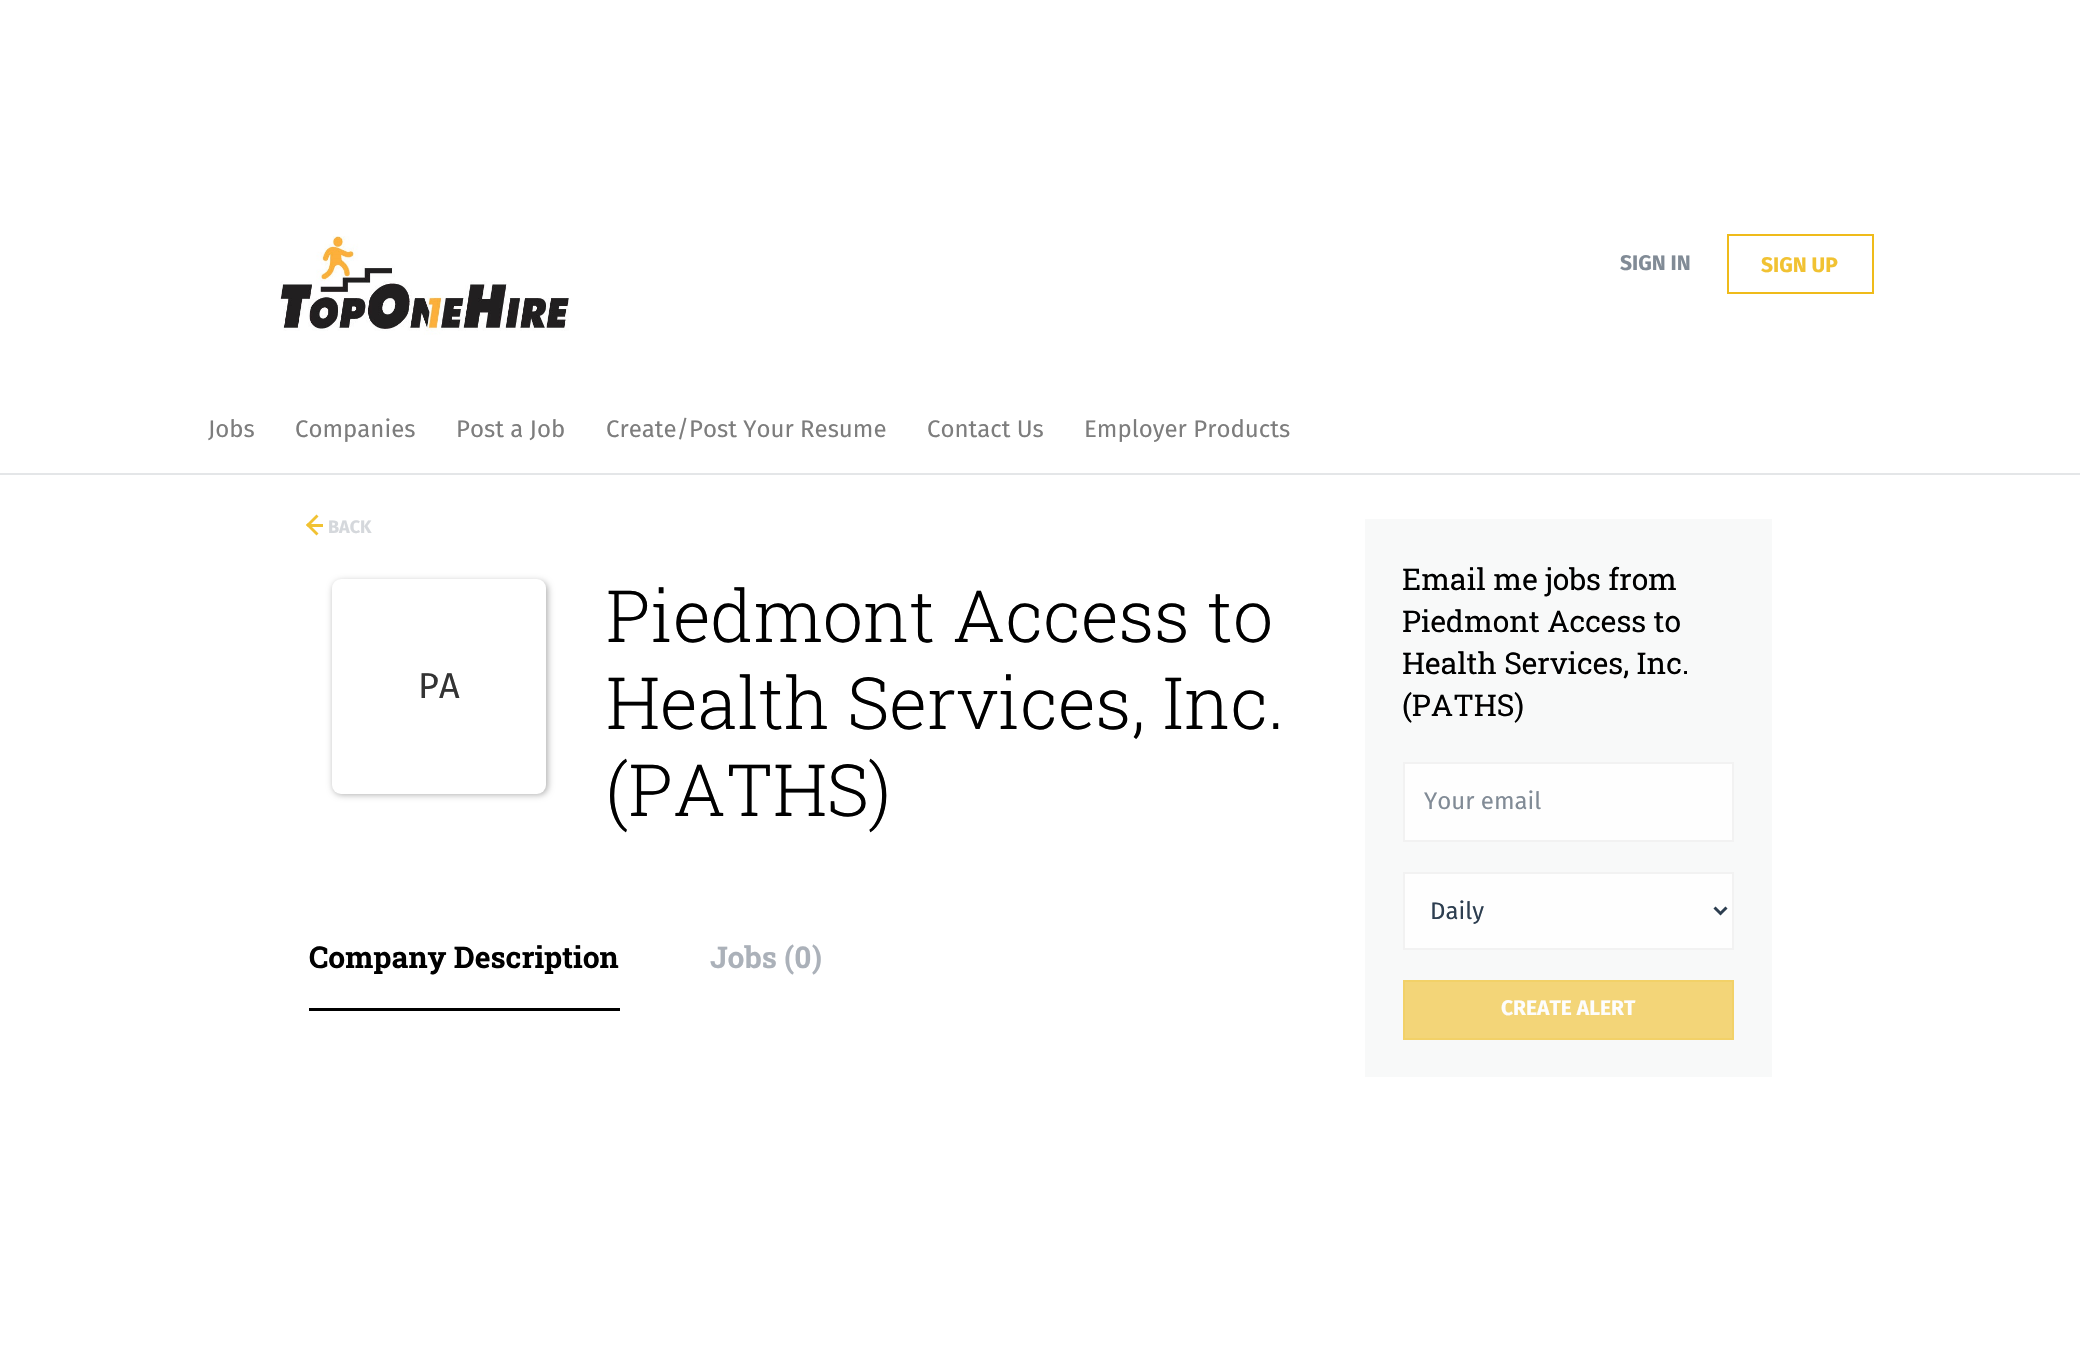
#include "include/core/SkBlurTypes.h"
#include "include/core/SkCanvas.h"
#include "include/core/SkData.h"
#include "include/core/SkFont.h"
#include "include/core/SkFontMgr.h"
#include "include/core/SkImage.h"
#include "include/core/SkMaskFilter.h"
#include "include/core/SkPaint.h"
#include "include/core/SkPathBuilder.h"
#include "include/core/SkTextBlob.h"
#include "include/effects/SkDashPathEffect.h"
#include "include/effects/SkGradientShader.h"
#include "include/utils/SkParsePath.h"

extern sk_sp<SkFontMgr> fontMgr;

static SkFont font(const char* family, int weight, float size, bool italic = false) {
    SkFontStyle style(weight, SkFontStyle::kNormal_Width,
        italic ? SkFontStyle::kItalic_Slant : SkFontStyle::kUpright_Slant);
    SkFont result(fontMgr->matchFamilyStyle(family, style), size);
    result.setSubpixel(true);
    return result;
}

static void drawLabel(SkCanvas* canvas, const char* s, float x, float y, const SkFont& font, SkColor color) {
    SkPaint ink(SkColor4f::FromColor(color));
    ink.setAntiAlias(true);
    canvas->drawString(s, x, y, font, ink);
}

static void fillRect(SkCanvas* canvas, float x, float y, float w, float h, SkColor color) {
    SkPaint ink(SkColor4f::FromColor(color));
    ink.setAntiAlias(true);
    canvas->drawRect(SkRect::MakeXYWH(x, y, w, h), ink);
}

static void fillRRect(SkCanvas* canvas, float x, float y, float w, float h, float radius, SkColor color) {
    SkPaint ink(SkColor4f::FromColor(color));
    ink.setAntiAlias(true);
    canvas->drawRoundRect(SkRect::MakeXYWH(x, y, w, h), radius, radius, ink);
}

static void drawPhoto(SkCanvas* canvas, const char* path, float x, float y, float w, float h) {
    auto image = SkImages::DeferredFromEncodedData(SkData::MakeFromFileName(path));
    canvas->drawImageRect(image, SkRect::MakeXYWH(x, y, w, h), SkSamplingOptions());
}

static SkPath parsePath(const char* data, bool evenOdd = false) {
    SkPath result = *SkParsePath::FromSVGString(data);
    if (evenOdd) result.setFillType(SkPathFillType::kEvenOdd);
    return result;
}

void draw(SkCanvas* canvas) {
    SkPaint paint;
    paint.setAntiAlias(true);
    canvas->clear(0xFFFFFFFF);
    fillRect(canvas, 0, 473, 2080, 2, 0xFFE4E6E8);
    drawPhoto(canvas, "assets/img1.png", 280, 236, 289, 99);
    SkFont font1 = font("Fira Sans", 700, 21);
    drawLabel(canvas, "SIGN IN", 1620, 270, font1, 0xFF818B96);
    paint.setStroke(true);
    paint.setStrokeWidth(2);
    paint.setColor(0xFFEFBB1A);
    canvas->drawRect(SkRect::MakeXYWH(1728, 235, 145, 58), paint);
    drawLabel(canvas, "SIGN UP", 1761, 272, font1, 0xFFF1C232);
    SkFont font2 = font("Fira Sans", 400, 24);
    drawLabel(canvas, "Jobs", 208, 437, font2, 0xFF7D7D7D);
    drawLabel(canvas, "Companies", 295, 437, font2, 0xFF7D7D7D);
    drawLabel(canvas, "Post a Job", 456, 437, font2, 0xFF7D7D7D);
    drawLabel(canvas, "Create/Post Your Resume", 606, 437, font2, 0xFF7D7D7D);
    drawLabel(canvas, "Contact Us", 927, 437, font2, 0xFF7D7D7D);
    drawLabel(canvas, "Employer Products", 1084, 437, font2, 0xFF7D7D7D);
    paint.setStroke(false);
    paint.setColor(0xFFF1C232);
    canvas->drawPath(parsePath("M308 523L318.5 533.5L316.5 535.5L306 525Z"), paint);
    canvas->drawPath(parsePath("M316.5 514.5L318.5 516.5L308 527L306 525Z"), paint);
    SkFont font3 = font("Fira Sans", 700, 18);
    drawLabel(canvas, "BACK", 328, 533, font3, 0xFFD5D8DC);
    fillRect(canvas, 309, 524, 14, 3, 0xFFF1C232);
    paint.setColor(0x4D000000);
    paint.setMaskFilter(SkMaskFilter::MakeBlur(kNormal_SkBlurStyle, 3));
    canvas->drawRoundRect(SkRect::MakeXYWH(333, 581, 215, 214), 9, 9, paint);
    paint.setMaskFilter(nullptr);
    fillRRect(canvas, 332, 579, 214, 215, 9, 0xFFFFFFFF);
    SkFont font4 = font("Fira Sans", 400, 36);
    drawLabel(canvas, "PA", 418, 698, font4, 0xFF333333);
    SkFont font5 = font("Roboto Slab", 300, 72);
    drawLabel(canvas, "Piedmont Access to", 606, 642, font5, 0xFF000000);
    drawLabel(canvas, "Health Services, Inc.", 606, 729, font5, 0xFF000000);
    drawLabel(canvas, "(PATHS)", 606, 816, font5, 0xFF000000);
    fillRect(canvas, 309, 1008, 311, 3, 0xFF000000);
    SkFont font6 = font("Roboto Slab", 700, 30);
    drawLabel(canvas, "Company Description", 309, 968, font6, 0xFF000000);
    drawLabel(canvas, "Jobs (0)", 710, 968, font6, 0xFFABB1B9);
    fillRect(canvas, 1365, 519, 407, 558, 0xFFF8F9F9);
    SkFont font7 = font("Roboto Slab", 400, 30);
    drawLabel(canvas, "Email me jobs from", 1402, 590, font7, 0xFF000000);
    drawLabel(canvas, "Piedmont Access to", 1402, 632, font7, 0xFF000000);
    drawLabel(canvas, "Health Services, Inc.", 1402, 674, font7, 0xFF000000);
    drawLabel(canvas, "(PATHS)", 1402, 716, font7, 0xFF000000);
    paint.setColor(0xFFFEFEFE);
    canvas->drawRect(SkRect::MakeXYWH(1404, 763, 329, 78), paint);
    paint.setStroke(true);
    paint.setColor(0xFFF2F2F2);
    canvas->drawRect(SkRect::MakeXYWH(1404, 763, 329, 78), paint);
    drawLabel(canvas, "Your email", 1424, 809, font2, 0xFF818B96);
    paint.setStroke(false);
    paint.setColor(0xFFFEFEFE);
    canvas->drawRect(SkRect::MakeXYWH(1404, 873, 329, 76), paint);
    paint.setStroke(true);
    paint.setColor(0xFFF2F2F2);
    canvas->drawRect(SkRect::MakeXYWH(1404, 873, 329, 76), paint);
    paint.setStrokeWidth(3);
    paint.setColor(0xFF2D3E50);
    canvas->drawPath(parsePath("M1714.5 907.5L1720.5 913.5L1726.5 907.5"), paint);
    drawLabel(canvas, "Daily", 1430, 919, font2, 0xFF2D3E50);
    paint.setStroke(false);
    paint.setColor(0xFFF3D578);
    canvas->drawRect(SkRect::MakeXYWH(1404, 981, 329, 58), paint);
    paint.setStroke(true);
    paint.setStrokeWidth(2);
    paint.setColor(0xFFF2D168);
    canvas->drawRect(SkRect::MakeXYWH(1404, 981, 329, 58), paint);
    drawLabel(canvas, "CREATE ALERT", 1501, 1015, font1, 0xFFFDFDFD);
}
